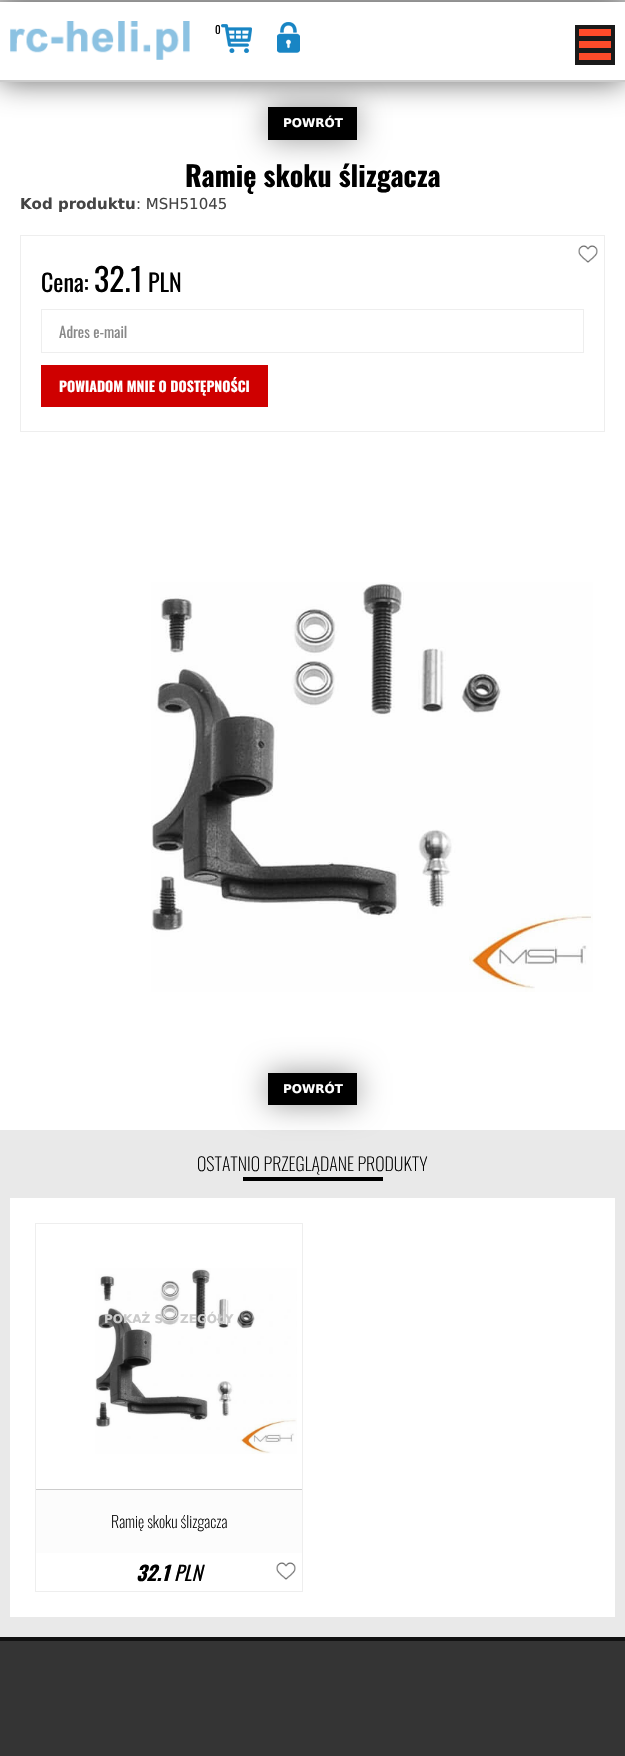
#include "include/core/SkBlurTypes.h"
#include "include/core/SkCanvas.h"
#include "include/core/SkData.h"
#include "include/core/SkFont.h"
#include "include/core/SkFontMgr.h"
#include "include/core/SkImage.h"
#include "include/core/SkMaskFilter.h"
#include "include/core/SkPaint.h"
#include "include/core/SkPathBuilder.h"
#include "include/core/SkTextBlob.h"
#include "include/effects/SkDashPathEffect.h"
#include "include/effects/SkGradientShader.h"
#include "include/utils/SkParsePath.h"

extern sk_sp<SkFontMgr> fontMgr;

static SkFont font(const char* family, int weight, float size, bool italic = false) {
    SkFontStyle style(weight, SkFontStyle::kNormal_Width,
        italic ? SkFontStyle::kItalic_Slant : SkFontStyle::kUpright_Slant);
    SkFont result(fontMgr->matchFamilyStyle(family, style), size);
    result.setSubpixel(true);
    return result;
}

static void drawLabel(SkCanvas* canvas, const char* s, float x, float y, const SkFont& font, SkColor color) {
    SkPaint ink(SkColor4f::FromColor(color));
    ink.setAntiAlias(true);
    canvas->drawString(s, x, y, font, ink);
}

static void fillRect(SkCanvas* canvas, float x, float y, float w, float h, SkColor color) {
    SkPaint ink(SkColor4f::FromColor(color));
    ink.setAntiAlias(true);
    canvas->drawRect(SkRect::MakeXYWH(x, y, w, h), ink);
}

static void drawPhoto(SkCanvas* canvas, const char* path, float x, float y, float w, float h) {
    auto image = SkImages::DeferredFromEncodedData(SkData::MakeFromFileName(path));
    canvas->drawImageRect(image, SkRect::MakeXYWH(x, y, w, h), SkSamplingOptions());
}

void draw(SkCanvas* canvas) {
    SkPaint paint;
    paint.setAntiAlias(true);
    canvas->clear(0xFFE9E9E9);
    fillRect(canvas, 0, 0, 625, 2, 0xFFCCCCCC);
    fillRect(canvas, 0, 82, 625, 1048, 0xFFFFFFFF);
    paint.setColor(0x66000000);
    paint.setMaskFilter(SkMaskFilter::MakeBlur(kNormal_SkBlurStyle, 15));
    canvas->drawRect(SkRect::MakeXYWH(268, 107, 89, 33), paint);
    paint.setMaskFilter(nullptr);
    fillRect(canvas, 268, 107, 89, 33, 0xFF000000);
    paint.setColor(0x99000000);
    paint.setMaskFilter(SkMaskFilter::MakeBlur(kNormal_SkBlurStyle, 15));
    canvas->drawRect(SkRect::MakeXYWH(0, 2, 625, 80), paint);
    paint.setMaskFilter(nullptr);
    fillRect(canvas, 0, 2, 625, 78, 0xFFFFFFFF);
    fillRect(canvas, 0, 80, 625, 2, 0xFFCCCCCC);
    drawPhoto(canvas, "assets/img1.png", 10, 21, 180, 39);
    SkFont font1 = font("Oswald", 400, 11);
    drawLabel(canvas, "0", 215, 34, font1, 0xFF000000);
    drawPhoto(canvas, "assets/img2.png", 221, 24, 31, 29);
    drawPhoto(canvas, "assets/img3.png", 277, 22, 23, 31);
    SkFont font2 = font("DejaVu Sans", 700, 12);
    drawLabel(canvas, "POWRÓT", 283, 127, font2, 0xFFFFFFFF);
    SkFont font3 = font("Oswald", 700, 28);
    drawLabel(canvas, "Ramię skoku ślizgacza", 185, 187, font3, 0xFF000000);
    SkFont font4 = font("DejaVu Sans", 700, 15);
    drawLabel(canvas, "Kod produktu", 20, 209, font4, 0xFF444444);
    SkFont font5 = font("DejaVu Sans", 400, 15);
    drawLabel(canvas, ": MSH51045", 136, 209, font5, 0xFF444444);
    paint.setStroke(true);
    paint.setStrokeWidth(1);
    paint.setColor(0xFFEEEEEE);
    canvas->drawRect(SkRect::MakeXYWH(20.5f, 235.5f, 584, 196), paint);
    drawPhoto(canvas, "assets/img4.png", 578, 245, 20, 18);
    SkFont font6 = font("Oswald", 400, 24);
    drawLabel(canvas, "Cena:", 41, 292, font6, 0xFF000000);
    SkFont font7 = font("Oswald", 400, 32);
    drawLabel(canvas, "32.1", 94, 292, font7, 0xFF000000);
    drawLabel(canvas, "PLN", 148, 292, font6, 0xFF000000);
    canvas->drawRect(SkRect::MakeXYWH(41.5f, 309.5f, 542, 43), paint);
    SkFont font8 = font("Oswald", 400, 15);
    drawLabel(canvas, "Adres e-mail", 59, 338, font8, 0xFF888888);
    fillRect(canvas, 41, 365, 227, 42, 0xFFCF0000);
    SkFont font9 = font("Oswald", 700, 14);
    drawLabel(canvas, "POWIADOM MNIE O DOSTĘPNOŚCI", 59, 392, font9, 0xFFFFFFFF);
    drawPhoto(canvas, "assets/img5.png", 151, 582, 442, 410);
    paint.setStroke(false);
    paint.setColor(0x66000000);
    paint.setMaskFilter(SkMaskFilter::MakeBlur(kNormal_SkBlurStyle, 15));
    canvas->drawRect(SkRect::MakeXYWH(268, 1073, 89, 32), paint);
    paint.setMaskFilter(nullptr);
    fillRect(canvas, 268, 1073, 89, 32, 0xFF000000);
    drawLabel(canvas, "POWRÓT", 283, 1093, font2, 0xFFFFFFFF);
    SkFont font10 = font("Oswald", 200, 18);
    drawLabel(canvas, "OSTATNIO PRZEGLĄDANE PRODUKTY", 197, 1171, font10, 0xFF000000);
    fillRect(canvas, 243, 1177, 140, 4, 0xFF000000);
    fillRect(canvas, 10, 1198, 605, 419, 0xFFFFFFFF);
    paint.setStroke(true);
    paint.setColor(0xFFEEEEEE);
    canvas->drawRect(SkRect::MakeXYWH(35.5f, 1223.5f, 267, 368), paint);
    drawPhoto(canvas, "assets/img6.png", 95, 1268, 202, 186);
    drawLabel(canvas, "POKAŻ S", 104, 1323, font2, 0xFFCACACA);
    drawLabel(canvas, "ZEGÓŁY", 180, 1323, font2, 0xFFCACACA);
    fillRect(canvas, 36, 1490, 266, 63, 0xFFFCFCFC);
    fillRect(canvas, 36, 1489, 266, 1, 0xFFCCCCCC);
    SkFont font11 = font("Oswald", 200, 16);
    drawLabel(canvas, "Ramię skoku ślizgacza", 111, 1528, font11, 0xFF000000);
    SkFont font12 = font("Oswald", 700, 20, true);
    drawLabel(canvas, "32.1", 136, 1581, font12, 0xFF000000);
    SkFont font13 = font("Oswald", 400, 20, true);
    drawLabel(canvas, "PLN", 174, 1581, font13, 0xFF000000);
    drawPhoto(canvas, "assets/img4.png", 276, 1562, 20, 18);
    fillRect(canvas, 0, 1637, 625, 4, 0xFF111111);
    fillRect(canvas, 0, 1641, 625, 115, 0xFF343434);
    fillRect(canvas, 575, 25, 40, 40, 0xFF1A1A1A);
    fillRect(canvas, 579, 29, 32, 7, 0xFFFF4B2A);
    fillRect(canvas, 579, 41, 32, 7, 0xFFFF4B2A);
    fillRect(canvas, 579, 53, 32, 7, 0xFFFF4B2A);
}
